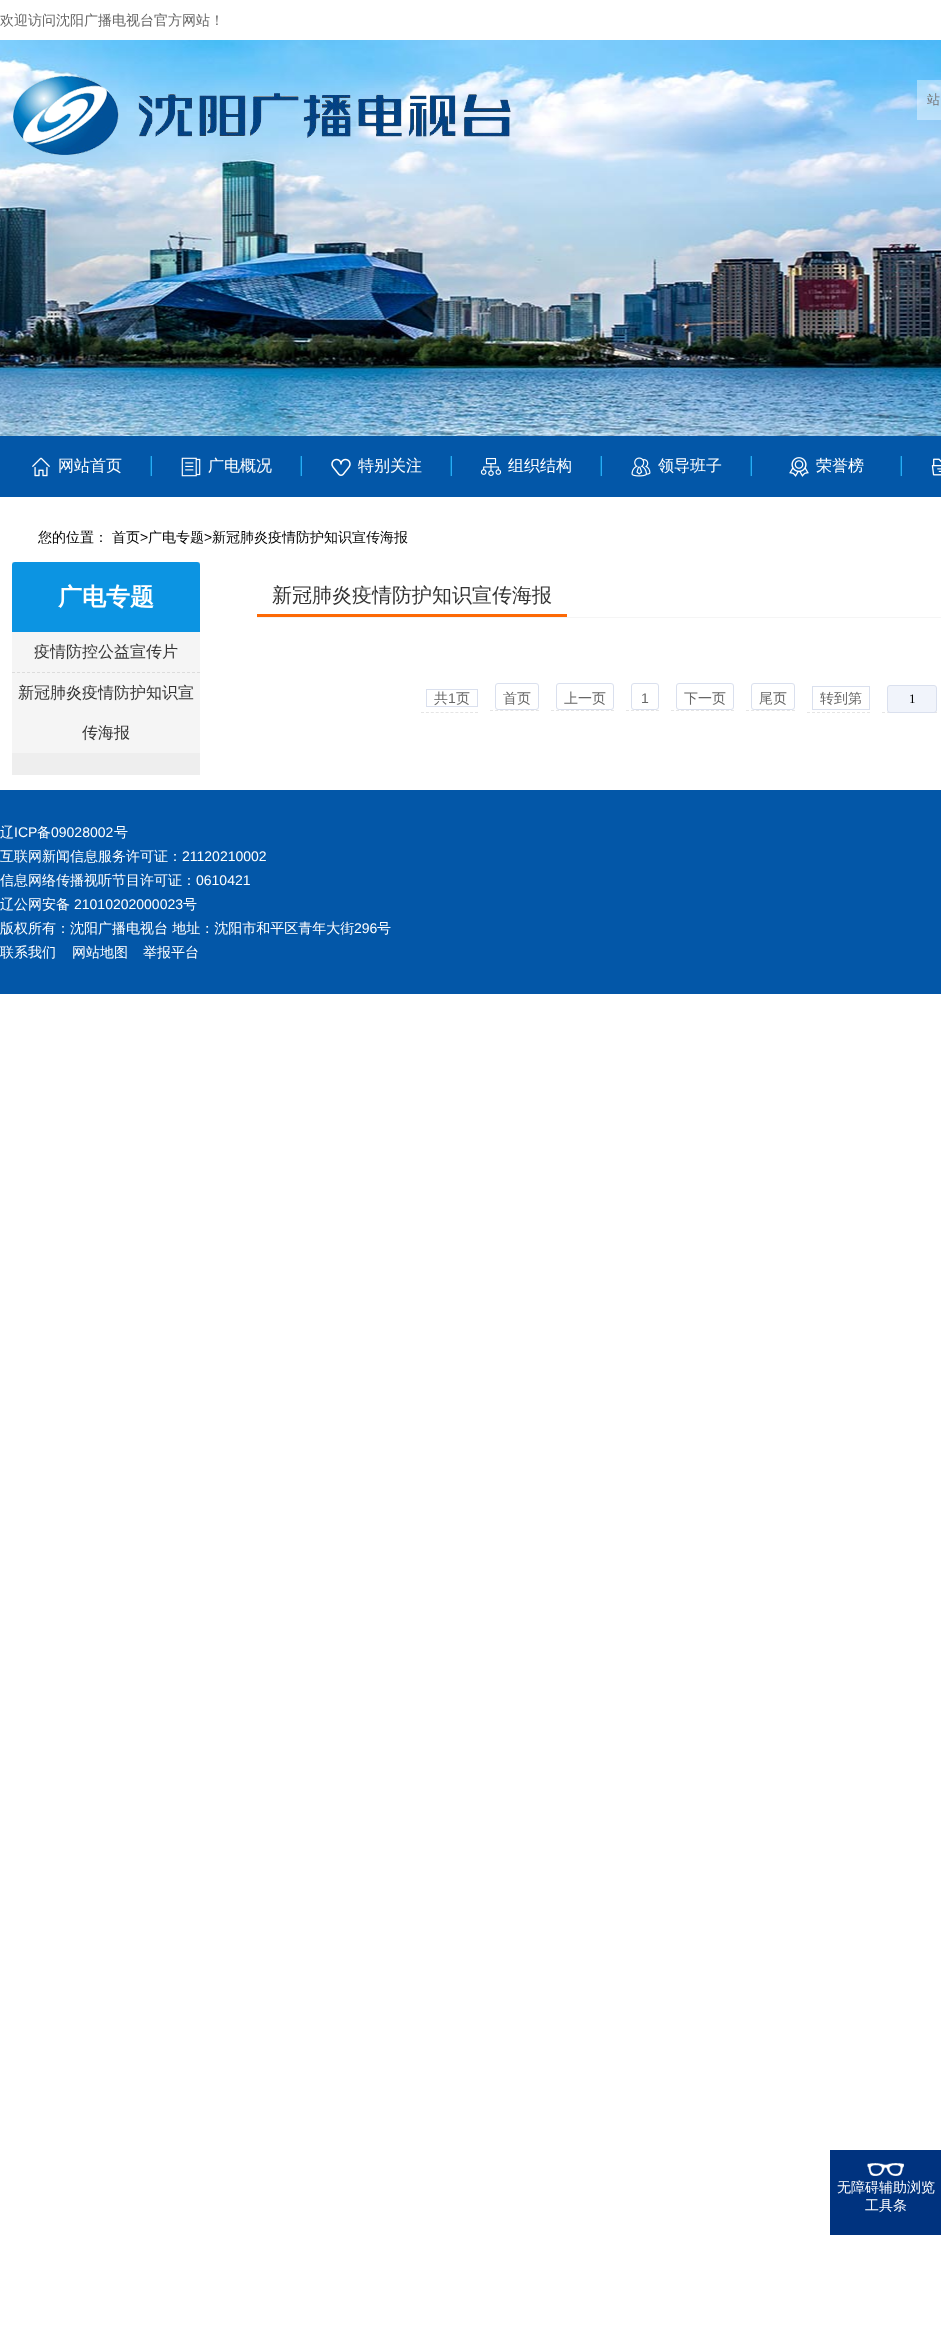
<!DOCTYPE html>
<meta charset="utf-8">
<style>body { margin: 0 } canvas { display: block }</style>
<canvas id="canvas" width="941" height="2335"></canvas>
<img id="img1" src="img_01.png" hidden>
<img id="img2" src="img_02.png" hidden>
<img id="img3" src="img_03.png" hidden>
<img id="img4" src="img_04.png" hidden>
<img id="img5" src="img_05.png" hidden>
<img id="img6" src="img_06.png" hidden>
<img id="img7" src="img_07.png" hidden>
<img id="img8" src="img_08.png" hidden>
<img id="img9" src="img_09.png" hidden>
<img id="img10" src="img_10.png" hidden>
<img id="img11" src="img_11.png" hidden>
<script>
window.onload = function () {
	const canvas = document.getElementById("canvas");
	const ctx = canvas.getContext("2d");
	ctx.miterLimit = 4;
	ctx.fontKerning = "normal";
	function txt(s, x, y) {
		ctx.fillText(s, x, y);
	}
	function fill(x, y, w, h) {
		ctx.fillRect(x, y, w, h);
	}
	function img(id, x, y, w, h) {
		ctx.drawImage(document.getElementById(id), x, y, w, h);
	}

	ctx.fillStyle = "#FFFFFF";
	fill(0, 0, 941, 2335);
	img("img1", 0, 40, 941, 396);
	img("img2", 13, 75, 498, 80);
	ctx.fillStyle = "rgba(255, 255, 255, 0.4)";
	fill(917, 80, 24, 40);
	ctx.fillStyle = "#0357A8";
	fill(0, 436, 941, 61);
	img("img3", 32, 457, 18, 20);
	img("img4", 150, 456, 2, 20);
	img("img5", 181, 457, 20, 20);
	img("img4", 300, 456, 2, 20);
	img("img6", 331, 458, 20, 18);
	img("img4", 450, 456, 2, 20);
	img("img7", 480, 458, 22, 18);
	img("img4", 600, 456, 2, 20);
	img("img8", 631, 457, 20, 20);
	img("img4", 750, 456, 2, 20);
	img("img9", 789, 457, 20, 20);
	img("img4", 900, 456, 2, 20);
	img("img10", 931, 458, 10, 18);
	ctx.fillStyle = "#EEEEEE";
	fill(12, 562, 188, 213);
	ctx.fillStyle = "#F5F5F5";
	ctx.beginPath();
	ctx.roundRect(12, 562, 188, 191, [3, 3, 0, 0]);
	ctx.fill();
	ctx.fillStyle = "#0C94E2";
	ctx.beginPath();
	ctx.roundRect(12, 562, 188, 70, [3, 3, 0, 0]);
	ctx.fill();
	ctx.beginPath();
	ctx.moveTo(12, 672.5);
	ctx.lineTo(200, 672.5);
	ctx.strokeStyle = "#DCDCDC";
	ctx.setLineDash([3, 2]);
	ctx.stroke();
	ctx.fillStyle = "#F5F5F5";
	fill(257, 617, 684, 1);
	ctx.fillStyle = "#FD6905";
	fill(257, 614, 310, 3);
	ctx.beginPath();
	ctx.moveTo(421, 712.5);
	ctx.lineTo(478, 712.5);
	ctx.strokeStyle = "#E5E5E5";
	ctx.setLineDash([3, 1.91]);
	ctx.stroke();
	ctx.strokeStyle = "#DAE0EE";
	ctx.setLineDash([]);
	ctx.strokeRect(426.5, 689.5, 51, 17);
	ctx.beginPath();
	ctx.moveTo(490, 710.5);
	ctx.lineTo(539, 710.5);
	ctx.strokeStyle = "#E5E5E5";
	ctx.setLineDash([3, 2.11]);
	ctx.stroke();
	ctx.beginPath();
	ctx.roundRect(495.5, 683.5, 43, 26, 2.5);
	ctx.strokeStyle = "#DAE0EE";
	ctx.setLineDash([]);
	ctx.stroke();
	ctx.beginPath();
	ctx.moveTo(551, 710.5);
	ctx.lineTo(614, 710.5);
	ctx.strokeStyle = "#E5E5E5";
	ctx.setLineDash([3, 2]);
	ctx.stroke();
	ctx.beginPath();
	ctx.roundRect(556.5, 683.5, 57, 26, 2.5);
	ctx.strokeStyle = "#DAE0EE";
	ctx.setLineDash([]);
	ctx.stroke();
	ctx.beginPath();
	ctx.moveTo(626, 710.5);
	ctx.lineTo(659, 710.5);
	ctx.strokeStyle = "#E5E5E5";
	ctx.setLineDash([3, 2]);
	ctx.stroke();
	ctx.beginPath();
	ctx.roundRect(631.5, 683.5, 27, 26, 2.5);
	ctx.strokeStyle = "#DAE0EE";
	ctx.setLineDash([]);
	ctx.stroke();
	ctx.beginPath();
	ctx.moveTo(671, 710.5);
	ctx.lineTo(734, 710.5);
	ctx.strokeStyle = "#E5E5E5";
	ctx.setLineDash([3, 2]);
	ctx.stroke();
	ctx.beginPath();
	ctx.roundRect(676.5, 683.5, 57, 26, 2.5);
	ctx.strokeStyle = "#DAE0EE";
	ctx.setLineDash([]);
	ctx.stroke();
	ctx.beginPath();
	ctx.moveTo(746, 710.5);
	ctx.lineTo(795, 710.5);
	ctx.strokeStyle = "#E5E5E5";
	ctx.setLineDash([3, 2.11]);
	ctx.stroke();
	ctx.beginPath();
	ctx.roundRect(751.5, 683.5, 43, 26, 2.5);
	ctx.strokeStyle = "#DAE0EE";
	ctx.setLineDash([]);
	ctx.stroke();
	ctx.beginPath();
	ctx.moveTo(807, 712.5);
	ctx.lineTo(870, 712.5);
	ctx.strokeStyle = "#E5E5E5";
	ctx.setLineDash([3, 2]);
	ctx.stroke();
	ctx.strokeStyle = "#DAE0EE";
	ctx.setLineDash([]);
	ctx.strokeRect(812.5, 686.5, 57, 23);
	ctx.beginPath();
	ctx.moveTo(882, 712.5);
	ctx.lineTo(937, 712.5);
	ctx.strokeStyle = "#E5E5E5";
	ctx.setLineDash([3, 2.2]);
	ctx.stroke();
	ctx.fillStyle = "#F1F4FB";
	ctx.beginPath();
	ctx.roundRect(887.5, 685.5, 49, 27, 2.5);
	ctx.fill();
	ctx.strokeStyle = "#DAE0EE";
	ctx.setLineDash([]);
	ctx.stroke();
	ctx.fillStyle = "#0357A8";
	fill(0, 790, 941, 204);
	ctx.fillStyle = "#00337F";
	fill(830, 2150, 111, 85);
	img("img11", 867, 2163, 37, 13);
	ctx.font = "500 14px WenQuanYi Zen Hei";
	ctx.fillStyle = "#666666";
	txt("欢迎访问沈阳广播电视台官方网站！", 0, 25);
	ctx.font = "500 13px WenQuanYi Zen Hei";
	ctx.fillStyle = "#757575";
	txt("站", 927, 104);
	ctx.font = "500 16px WenQuanYi Zen Hei";
	ctx.fillStyle = "#FFFFFF";
	txt("网站首页", 58, 471);
	txt("广电概况", 208, 471);
	txt("特别关注", 358, 471);
	txt("组织结构", 508, 471);
	txt("领导班子", 658, 471);
	txt("荣誉榜", 816, 471);
	ctx.font = "500 14px WenQuanYi Zen Hei";
	ctx.fillStyle = "#000000";
	txt("您的位置：", 38, 542);
	txt("首页", 112, 542);
	ctx.font = "14px Liberation Sans";
	txt(">", 140, 542);
	ctx.font = "500 14px WenQuanYi Zen Hei";
	txt("广电专题", 148, 542);
	ctx.font = "14px Liberation Sans";
	txt(">", 204, 542);
	ctx.font = "500 14px WenQuanYi Zen Hei";
	txt("新冠肺炎疫情防护知识宣传海报", 212, 542);
	ctx.font = "bold 24px WenQuanYi Zen Hei";
	ctx.fillStyle = "#FFFFFF";
	txt("广电专题", 58, 605);
	ctx.font = "500 16px WenQuanYi Zen Hei";
	ctx.fillStyle = "#333333";
	txt("疫情防控公益宣传片", 34, 657);
	txt("新冠肺炎疫情防护知识宣", 18, 698);
	txt("传海报", 82, 738);
	ctx.font = "500 20px WenQuanYi Zen Hei";
	txt("新冠肺炎疫情防护知识宣传海报", 272, 602);
	ctx.font = "500 14px WenQuanYi Zen Hei";
	ctx.fillStyle = "#666666";
	txt("共", 434, 703);
	ctx.font = "14px Liberation Sans";
	txt("1", 448, 703);
	ctx.font = "500 14px WenQuanYi Zen Hei";
	txt("页", 456, 703);
	txt("首页", 503, 703);
	txt("上一页", 564, 703);
	ctx.font = "14px Liberation Sans";
	txt("1", 641, 703);
	ctx.font = "500 14px WenQuanYi Zen Hei";
	txt("下一页", 684, 703);
	txt("尾页", 759, 703);
	txt("转到第", 820, 703);
	ctx.font = "13px Liberation Serif";
	ctx.fillStyle = "#000000";
	txt("1", 909, 703);
	ctx.font = "500 14px WenQuanYi Zen Hei";
	ctx.fillStyle = "#FFFFFF";
	txt("辽", 0, 837);
	ctx.font = "14px Liberation Sans";
	txt("ICP", 14, 837);
	ctx.font = "500 14px WenQuanYi Zen Hei";
	txt("备", 37, 837);
	ctx.font = "14px Liberation Sans";
	txt("09028002", 51, 837);
	ctx.font = "500 14px WenQuanYi Zen Hei";
	txt("号", 114, 837);
	txt("互联网新闻信息服务许可证：", 0, 861);
	ctx.font = "14px Liberation Sans";
	txt("21120210002", 182, 861);
	ctx.font = "500 14px WenQuanYi Zen Hei";
	txt("信息网络传播视听节目许可证：", 0, 885);
	ctx.font = "14px Liberation Sans";
	txt("0610421", 196, 885);
	ctx.font = "500 14px WenQuanYi Zen Hei";
	txt("辽公网安备", 0, 909);
	ctx.font = "14px Liberation Sans";
	txt("21010202000023", 74, 909);
	ctx.font = "500 14px WenQuanYi Zen Hei";
	txt("号", 183, 909);
	txt("版权所有：沈阳广播电视台 地址：沈阳市和平区青年大街", 0, 933);
	ctx.font = "14px Liberation Sans";
	txt("296", 354, 933);
	ctx.font = "500 14px WenQuanYi Zen Hei";
	txt("号", 377, 933);
	txt("联系我们", 0, 957);
	txt("网站地图", 72, 957);
	txt("举报平台", 143, 957);
	txt("无障碍辅助浏览", 837, 2192);
	txt("工具条", 865, 2210);
};
</script>
